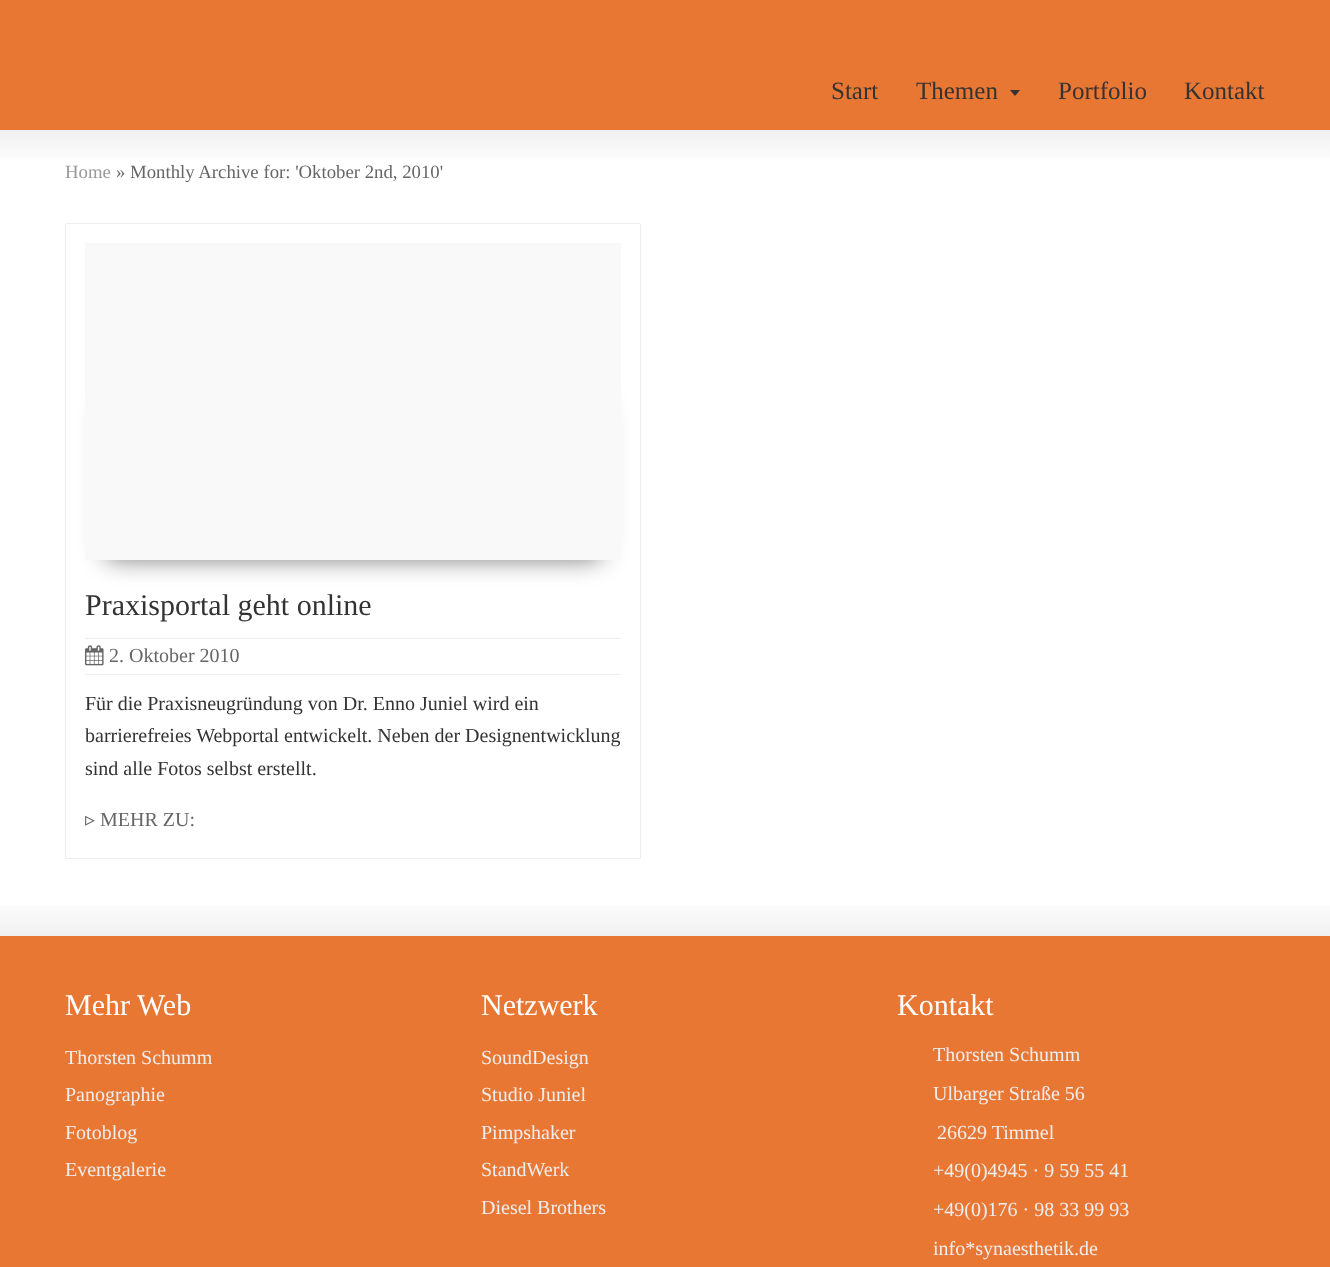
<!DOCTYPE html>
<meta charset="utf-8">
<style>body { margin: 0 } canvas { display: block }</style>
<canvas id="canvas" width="1330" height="1267"></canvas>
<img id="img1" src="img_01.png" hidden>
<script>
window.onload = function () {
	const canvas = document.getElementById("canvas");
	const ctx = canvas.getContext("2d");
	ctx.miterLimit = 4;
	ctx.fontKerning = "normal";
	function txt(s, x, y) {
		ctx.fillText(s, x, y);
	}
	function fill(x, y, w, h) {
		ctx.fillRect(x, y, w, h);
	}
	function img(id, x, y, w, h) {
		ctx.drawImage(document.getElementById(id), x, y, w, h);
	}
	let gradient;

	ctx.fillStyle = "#FFFFFF";
	fill(0, 0, 1330, 1267);
	ctx.fillStyle = "#E97734";
	fill(0, 0, 1330, 130);
	ctx.fillStyle = "#333333";
	ctx.beginPath();
	ctx.moveTo(1010, 90);
	ctx.lineTo(1020, 90);
	ctx.lineTo(1015, 96);
	ctx.closePath();
	ctx.fill();
	gradient = ctx.createLinearGradient(665, 130, 665, 164);
	gradient.addColorStop(0, "#F0F0F0");
	gradient.addColorStop(1, "#FFFFFF");
	ctx.fillStyle = gradient;
	fill(0, 130, 1330, 28);
	ctx.beginPath();
	ctx.roundRect(65.5, 223.5, 575, 635, 0.5);
	ctx.strokeStyle = "#EEEEEE";
	ctx.stroke();
	ctx.fillStyle = "rgba(0, 0, 0, 0.5)";
	ctx.filter = "blur(12.5px)";
	ctx.beginPath();
	ctx.roundRect(104, 401, 499, 159, 13);
	ctx.fill();
	ctx.filter = "none";
	ctx.fillStyle = "#F9F9F9";
	fill(85, 243, 536, 317);
	ctx.fillStyle = "#EEEEEE";
	fill(85, 638, 536, 1);
	fill(85, 674, 536, 1);
	img("img1", 85, 645, 19, 21);
	gradient = ctx.createLinearGradient(665, 899, 665, 936);
	gradient.addColorStop(0, "#FFFFFF");
	gradient.addColorStop(1, "#F0F0F0");
	ctx.fillStyle = gradient;
	fill(0, 905, 1330, 31);
	ctx.fillStyle = "#E97734";
	fill(0, 936, 1330, 331);
	ctx.font = "25px Liberation Serif";
	ctx.fillStyle = "#333333";
	txt("Start", 831, 99);
	txt("Themen", 916, 99);
	txt("Portfolio", 1058, 99);
	txt("Kontakt", 1184, 99);
	ctx.font = "18.75px Liberation Serif";
	ctx.fillStyle = "#999999";
	txt("Home", 65, 178);
	ctx.fillStyle = "#666666";
	txt("» Monthly Archive for: 'Oktober 2nd, 2010'", 116, 178);
	ctx.font = "30px Liberation Serif";
	ctx.fillStyle = "#333333";
	txt("Praxisportal geht online", 85, 615);
	ctx.font = "20px Liberation Serif";
	ctx.fillStyle = "#666666";
	txt("2. Oktober 2010", 109, 662);
	ctx.fillStyle = "#333333";
	txt("Für die Praxisneugründung von Dr. Enno Juniel wird ein", 85, 710);
	txt("barrierefreies Webportal entwickelt. Neben der Designentwicklung", 85, 742);
	txt("sind alle Fotos selbst erstellt.", 85, 775);
	ctx.font = "20px DejaVu Sans";
	ctx.fillStyle = "#666666";
	txt("▹", 85, 826);
	ctx.font = "20px Liberation Serif";
	txt("MEHR ZU:", 100, 826);
	ctx.font = "30px Liberation Serif";
	ctx.fillStyle = "#FFFFFF";
	txt("Mehr Web", 65, 1015);
	ctx.font = "20px Liberation Serif";
	ctx.fillStyle = "#EEEEEE";
	txt("Thorsten Schumm", 65, 1064);
	txt("Panographie", 65, 1101);
	txt("Fotoblog", 65, 1139);
	txt("Eventgalerie", 65, 1176);
	ctx.font = "30px Liberation Serif";
	ctx.fillStyle = "#FFFFFF";
	txt("Netzwerk", 481, 1015);
	ctx.font = "20px Liberation Serif";
	ctx.fillStyle = "#EEEEEE";
	txt("SoundDesign", 481, 1064);
	txt("Studio Juniel", 481, 1101);
	txt("Pimpshaker", 481, 1139);
	txt("StandWerk", 481, 1176);
	txt("Diesel Brothers", 481, 1214);
	ctx.font = "30px Liberation Serif";
	ctx.fillStyle = "#FFFFFF";
	txt("Kontakt", 897, 1015);
	ctx.font = "20px Liberation Serif";
	ctx.fillStyle = "#EEEEEE";
	txt("Thorsten Schumm", 933, 1061);
	txt("Ulbarger Straße 56", 933, 1100);
	txt("26629 Timmel", 937, 1139);
	txt("+49(0)4945 · 9 59 55 41", 933, 1177);
	txt("+49(0)176 · 98 33 99 93", 933, 1216);
	txt("info*synaesthetik.de", 933, 1255);
};
</script>
